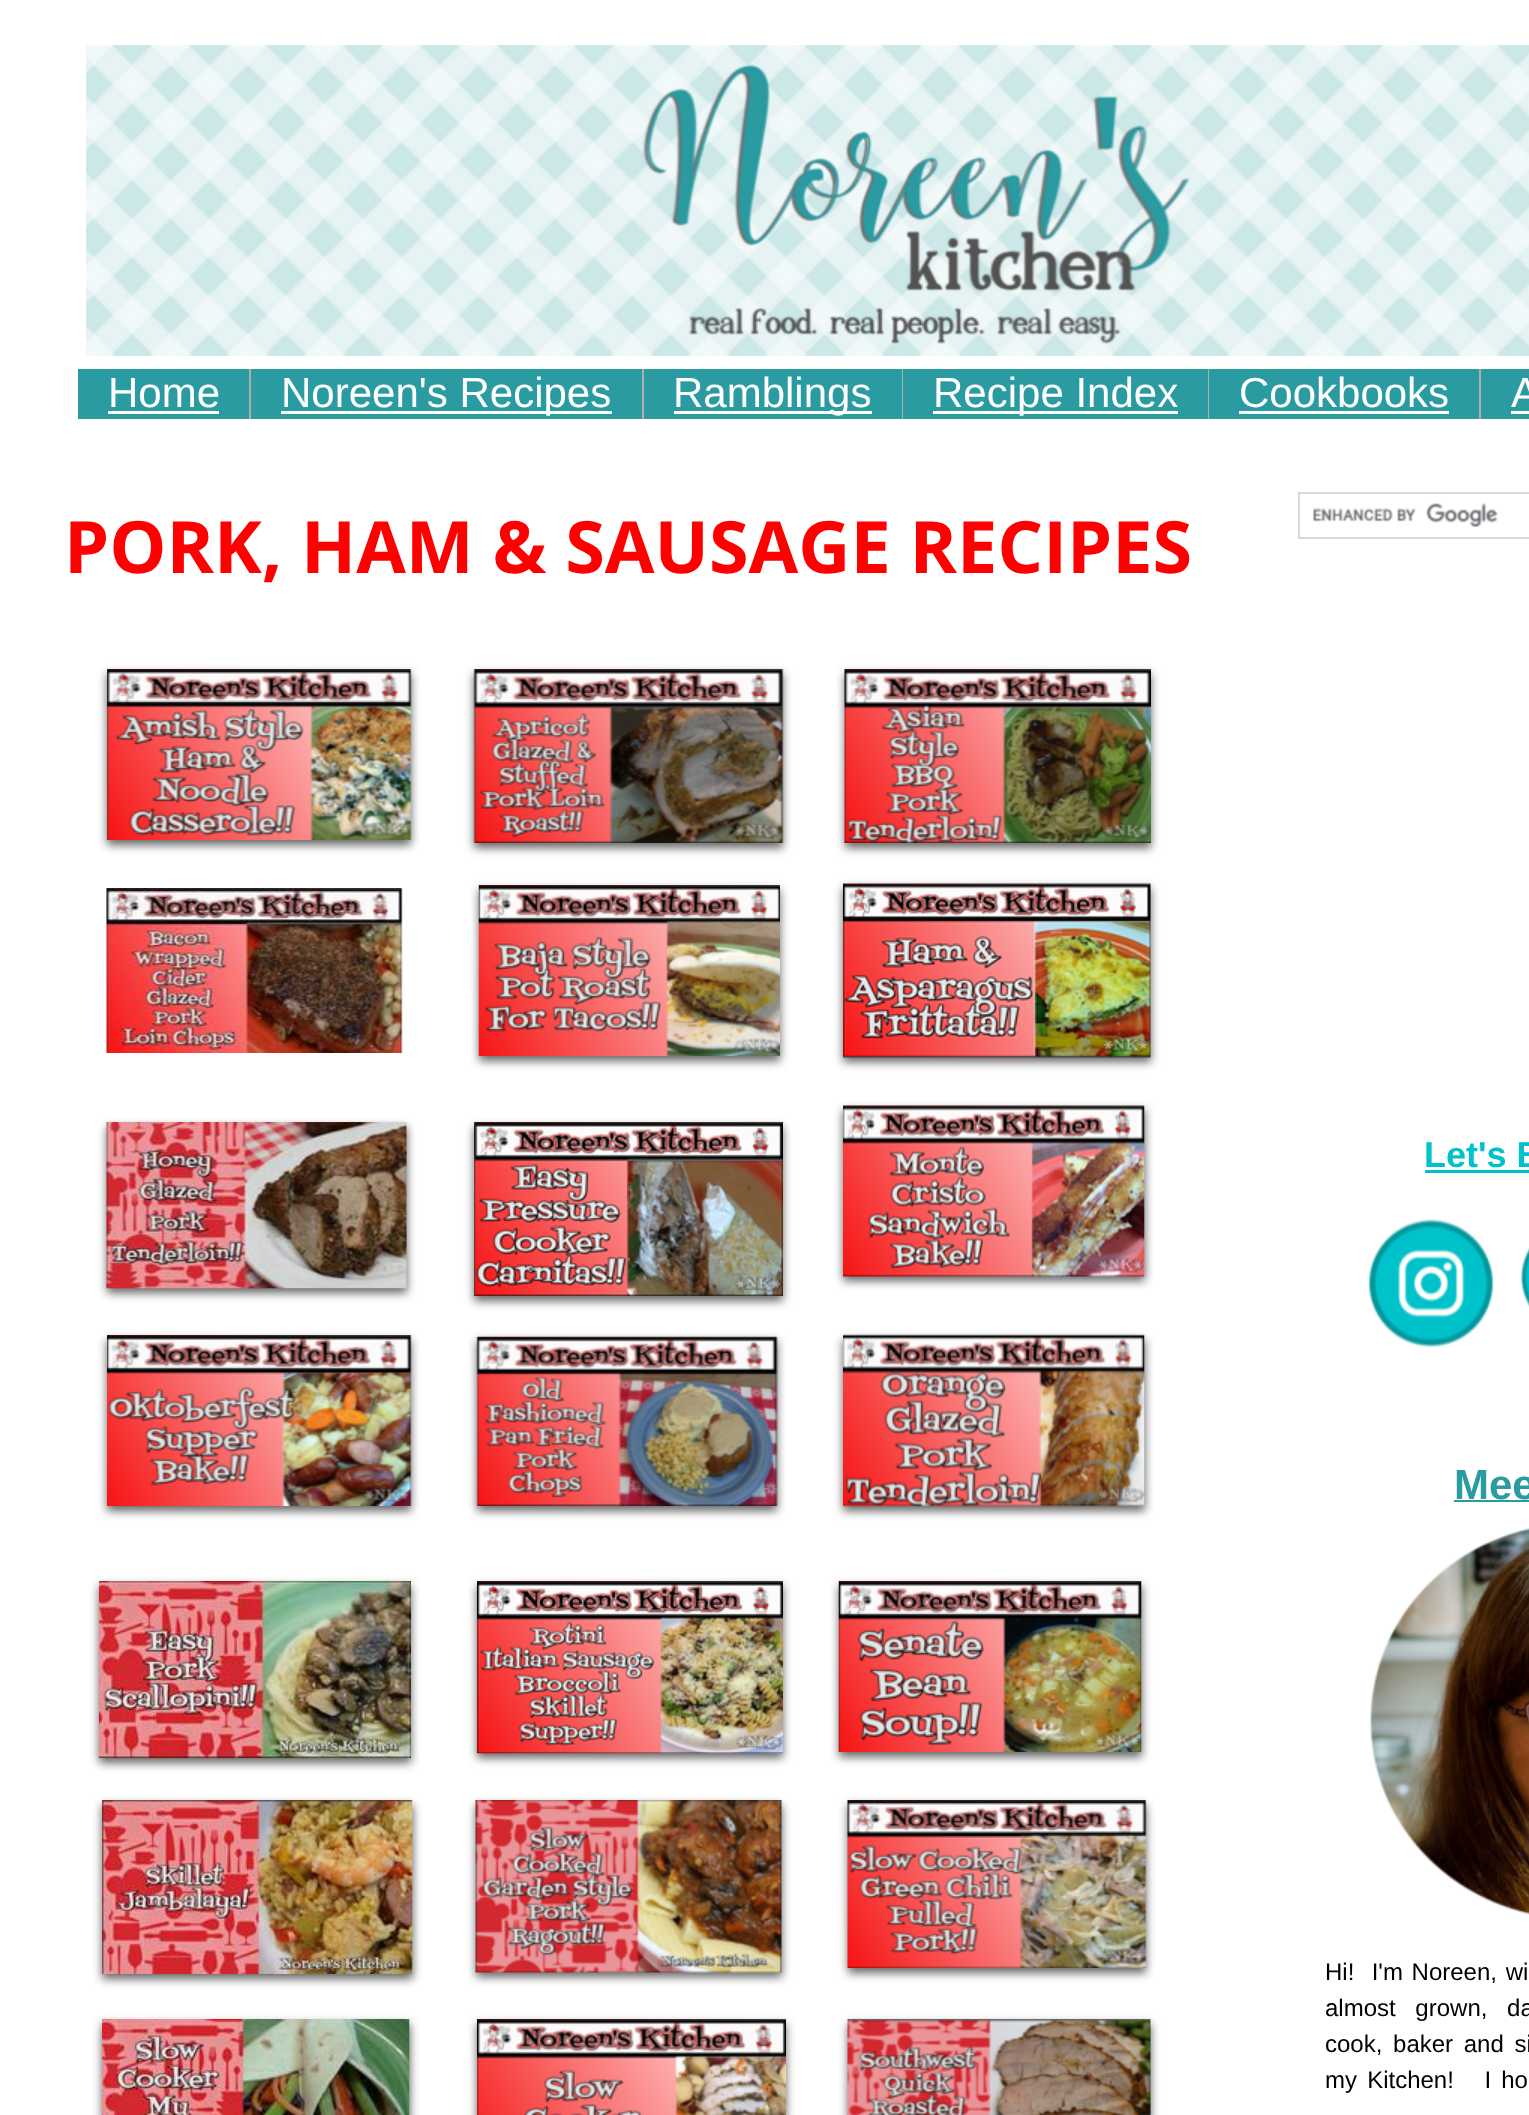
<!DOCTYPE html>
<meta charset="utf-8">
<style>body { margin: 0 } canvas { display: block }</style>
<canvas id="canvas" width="1529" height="2115"></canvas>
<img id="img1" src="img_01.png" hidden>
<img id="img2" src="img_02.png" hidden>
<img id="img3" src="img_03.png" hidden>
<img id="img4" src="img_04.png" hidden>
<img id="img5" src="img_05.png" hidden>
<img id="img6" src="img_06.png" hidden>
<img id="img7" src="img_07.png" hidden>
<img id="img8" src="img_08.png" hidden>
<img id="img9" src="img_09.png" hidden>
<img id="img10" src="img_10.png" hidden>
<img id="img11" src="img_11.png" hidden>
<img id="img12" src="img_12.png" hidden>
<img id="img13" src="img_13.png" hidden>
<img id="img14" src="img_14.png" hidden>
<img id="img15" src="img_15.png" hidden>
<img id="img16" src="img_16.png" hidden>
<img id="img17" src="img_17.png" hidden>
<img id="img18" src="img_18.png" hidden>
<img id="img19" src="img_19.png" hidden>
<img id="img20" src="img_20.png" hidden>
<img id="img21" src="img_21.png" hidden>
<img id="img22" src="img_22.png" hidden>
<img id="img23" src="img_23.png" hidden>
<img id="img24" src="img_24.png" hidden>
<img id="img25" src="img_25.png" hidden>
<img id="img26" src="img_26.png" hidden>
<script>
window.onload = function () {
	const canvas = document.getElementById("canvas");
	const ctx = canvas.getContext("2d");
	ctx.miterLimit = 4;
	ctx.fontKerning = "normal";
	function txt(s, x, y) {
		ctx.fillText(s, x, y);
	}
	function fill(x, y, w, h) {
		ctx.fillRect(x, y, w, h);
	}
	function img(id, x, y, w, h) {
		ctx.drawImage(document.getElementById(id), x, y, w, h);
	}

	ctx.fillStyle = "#FFFFFF";
	fill(0, 0, 1529, 2115);
	img("img1", 86, 45, 1443, 311);
	ctx.fillStyle = "#2B9BA2";
	fill(78, 369, 171, 50);
	ctx.fillStyle = "#AEAEAE";
	fill(249, 369, 2, 50);
	ctx.fillStyle = "#FFFFFF";
	fill(108, 411, 111, 3);
	ctx.fillStyle = "#2B9BA2";
	fill(251, 369, 391, 50);
	ctx.fillStyle = "#AEAEAE";
	fill(642, 369, 2, 50);
	ctx.fillStyle = "#FFFFFF";
	fill(281, 411, 331, 3);
	ctx.fillStyle = "#2B9BA2";
	fill(644, 369, 258, 50);
	ctx.fillStyle = "#AEAEAE";
	fill(902, 369, 1, 50);
	ctx.fillStyle = "#FFFFFF";
	fill(674, 411, 198, 3);
	ctx.fillStyle = "#2B9BA2";
	fill(903, 369, 305, 50);
	ctx.fillStyle = "#AEAEAE";
	fill(1208, 369, 1, 50);
	ctx.fillStyle = "#FFFFFF";
	fill(933, 411, 245, 3);
	ctx.fillStyle = "#2B9BA2";
	fill(1209, 369, 270, 50);
	ctx.fillStyle = "#AEAEAE";
	fill(1479, 369, 2, 50);
	ctx.fillStyle = "#FFFFFF";
	fill(1239, 411, 210, 3);
	ctx.fillStyle = "#2B9BA2";
	fill(1481, 369, 48, 50);
	ctx.fillStyle = "#FFFFFF";
	fill(1511, 411, 18, 3);
	ctx.strokeStyle = "#D9D9D9";
	ctx.lineWidth = 2;
	ctx.strokeRect(1299, 493, 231, 45);
	img("img2", 1313, 503, 185, 24);
	ctx.fillStyle = "rgba(50, 50, 50, 0.75)";
	ctx.filter = "blur(5px)";
	ctx.beginPath();
	ctx.rect(107, 674, 304, 171);
	ctx.fill();
	ctx.filter = "none";
	img("img3", 107, 669, 305, 171);
	ctx.filter = "blur(5px)";
	ctx.beginPath();
	ctx.rect(474, 674, 309, 174);
	ctx.fill();
	ctx.filter = "none";
	img("img4", 473, 669, 311, 174);
	ctx.filter = "blur(5px)";
	ctx.beginPath();
	ctx.rect(845, 674, 306, 174);
	ctx.fill();
	ctx.filter = "none";
	img("img5", 844, 669, 307, 174);
	img("img6", 106, 888, 297, 165);
	ctx.filter = "blur(5px)";
	ctx.beginPath();
	ctx.rect(479, 890, 301, 171);
	ctx.fill();
	ctx.filter = "none";
	img("img7", 478, 885, 302, 171);
	ctx.filter = "blur(5px)";
	ctx.beginPath();
	ctx.rect(843, 888, 308, 174);
	ctx.fill();
	ctx.filter = "none";
	img("img8", 843, 883, 308, 175);
	ctx.filter = "blur(5px)";
	ctx.beginPath();
	ctx.rect(107, 1127, 300, 166);
	ctx.fill();
	ctx.filter = "none";
	img("img9", 106, 1122, 301, 167);
	ctx.filter = "blur(5px)";
	ctx.beginPath();
	ctx.rect(474, 1127, 309, 174);
	ctx.fill();
	ctx.filter = "none";
	img("img10", 474, 1122, 309, 174);
	ctx.filter = "blur(5px)";
	ctx.beginPath();
	ctx.rect(843, 1110, 302, 171);
	ctx.fill();
	ctx.filter = "none";
	img("img11", 843, 1105, 302, 172);
	ctx.fillStyle = "#00C2CB";
	fill(1425, 1170, 104, 3);
	img("img12", 1368, 1219, 127, 129);
	img("img13", 1520, 1247, 9, 60);
	ctx.fillStyle = "rgba(50, 50, 50, 0.75)";
	ctx.filter = "blur(5px)";
	ctx.beginPath();
	ctx.rect(107, 1340, 304, 171);
	ctx.fill();
	ctx.filter = "none";
	img("img14", 107, 1335, 305, 171);
	ctx.filter = "blur(5px)";
	ctx.beginPath();
	ctx.rect(477, 1341, 300, 170);
	ctx.fill();
	ctx.filter = "none";
	img("img15", 476, 1336, 302, 170);
	ctx.filter = "blur(5px)";
	ctx.beginPath();
	ctx.rect(843, 1340, 302, 171);
	ctx.fill();
	ctx.filter = "none";
	img("img16", 843, 1334, 302, 173);
	ctx.fillStyle = "#2B9BA2";
	fill(1454, 1500, 75, 2);
	ctx.fillStyle = "rgba(50, 50, 50, 0.75)";
	ctx.filter = "blur(5px)";
	ctx.beginPath();
	ctx.rect(99, 1586, 312, 177);
	ctx.fill();
	ctx.filter = "none";
	img("img17", 99, 1581, 312, 177);
	ctx.filter = "blur(5px)";
	ctx.beginPath();
	ctx.rect(477, 1586, 306, 172);
	ctx.fill();
	ctx.filter = "none";
	img("img18", 477, 1581, 306, 173);
	ctx.filter = "blur(5px)";
	ctx.beginPath();
	ctx.rect(839, 1586, 303, 171);
	ctx.fill();
	ctx.filter = "none";
	img("img19", 838, 1581, 304, 171);
	img("img20", 1369, 1528, 160, 387);
	ctx.filter = "blur(5px)";
	ctx.beginPath();
	ctx.rect(102, 1805, 311, 174);
	ctx.fill();
	ctx.filter = "none";
	img("img21", 102, 1800, 311, 174);
	ctx.filter = "blur(5px)";
	ctx.beginPath();
	ctx.rect(476, 1805, 306, 172);
	ctx.fill();
	ctx.filter = "none";
	img("img22", 475, 1800, 307, 173);
	ctx.filter = "blur(5px)";
	ctx.beginPath();
	ctx.rect(848, 1805, 298, 168);
	ctx.fill();
	ctx.filter = "none";
	img("img23", 847, 1800, 300, 168);
	ctx.filter = "blur(5px)";
	ctx.beginPath();
	ctx.rect(102, 2024, 308, 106);
	ctx.fill();
	ctx.filter = "none";
	img("img24", 102, 2019, 308, 96);
	ctx.filter = "blur(5px)";
	ctx.beginPath();
	ctx.rect(477, 2024, 309, 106);
	ctx.fill();
	ctx.filter = "none";
	img("img25", 477, 2019, 309, 96);
	ctx.filter = "blur(5px)";
	ctx.beginPath();
	ctx.rect(848, 2024, 303, 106);
	ctx.fill();
	ctx.filter = "none";
	img("img26", 847, 2019, 304, 96);
	ctx.font = "42px Liberation Sans";
	ctx.fillStyle = "#FFFFFF";
	txt("Home", 108, 407);
	txt("Noreen's Recipes", 281, 407);
	txt("Ramblings", 673, 407);
	txt("Recipe Index", 933, 407);
	txt("Cookbooks", 1239, 407);
	txt("A", 1511, 407);
	ctx.font = "bold 72px Open Sans";
	ctx.fillStyle = "#FF0000";
	txt("PORK, HAM & SAUSAGE RECIPES", 64, 573);
	ctx.font = "bold 36px Liberation Sans";
	ctx.fillStyle = "#00C2CB";
	txt("Let's B", 1424, 1167);
	ctx.font = "bold 42px Liberation Sans";
	ctx.fillStyle = "#2B9BA2";
	txt("Mee", 1454, 1499);
	ctx.wordSpacing = "2px";
	ctx.font = "24px Liberation Sans";
	ctx.fillStyle = "#000000";
	txt("Hi!  I'm Noreen, wi", 1325, 1980);
	ctx.wordSpacing = "13px";
	txt("almost grown, da", 1325, 2016);
	ctx.wordSpacing = "4px";
	txt("cook, baker and si", 1325, 2052);
	ctx.wordSpacing = "3.5px";
	txt("my Kitchen!   I ho", 1325, 2088);
};
</script>
